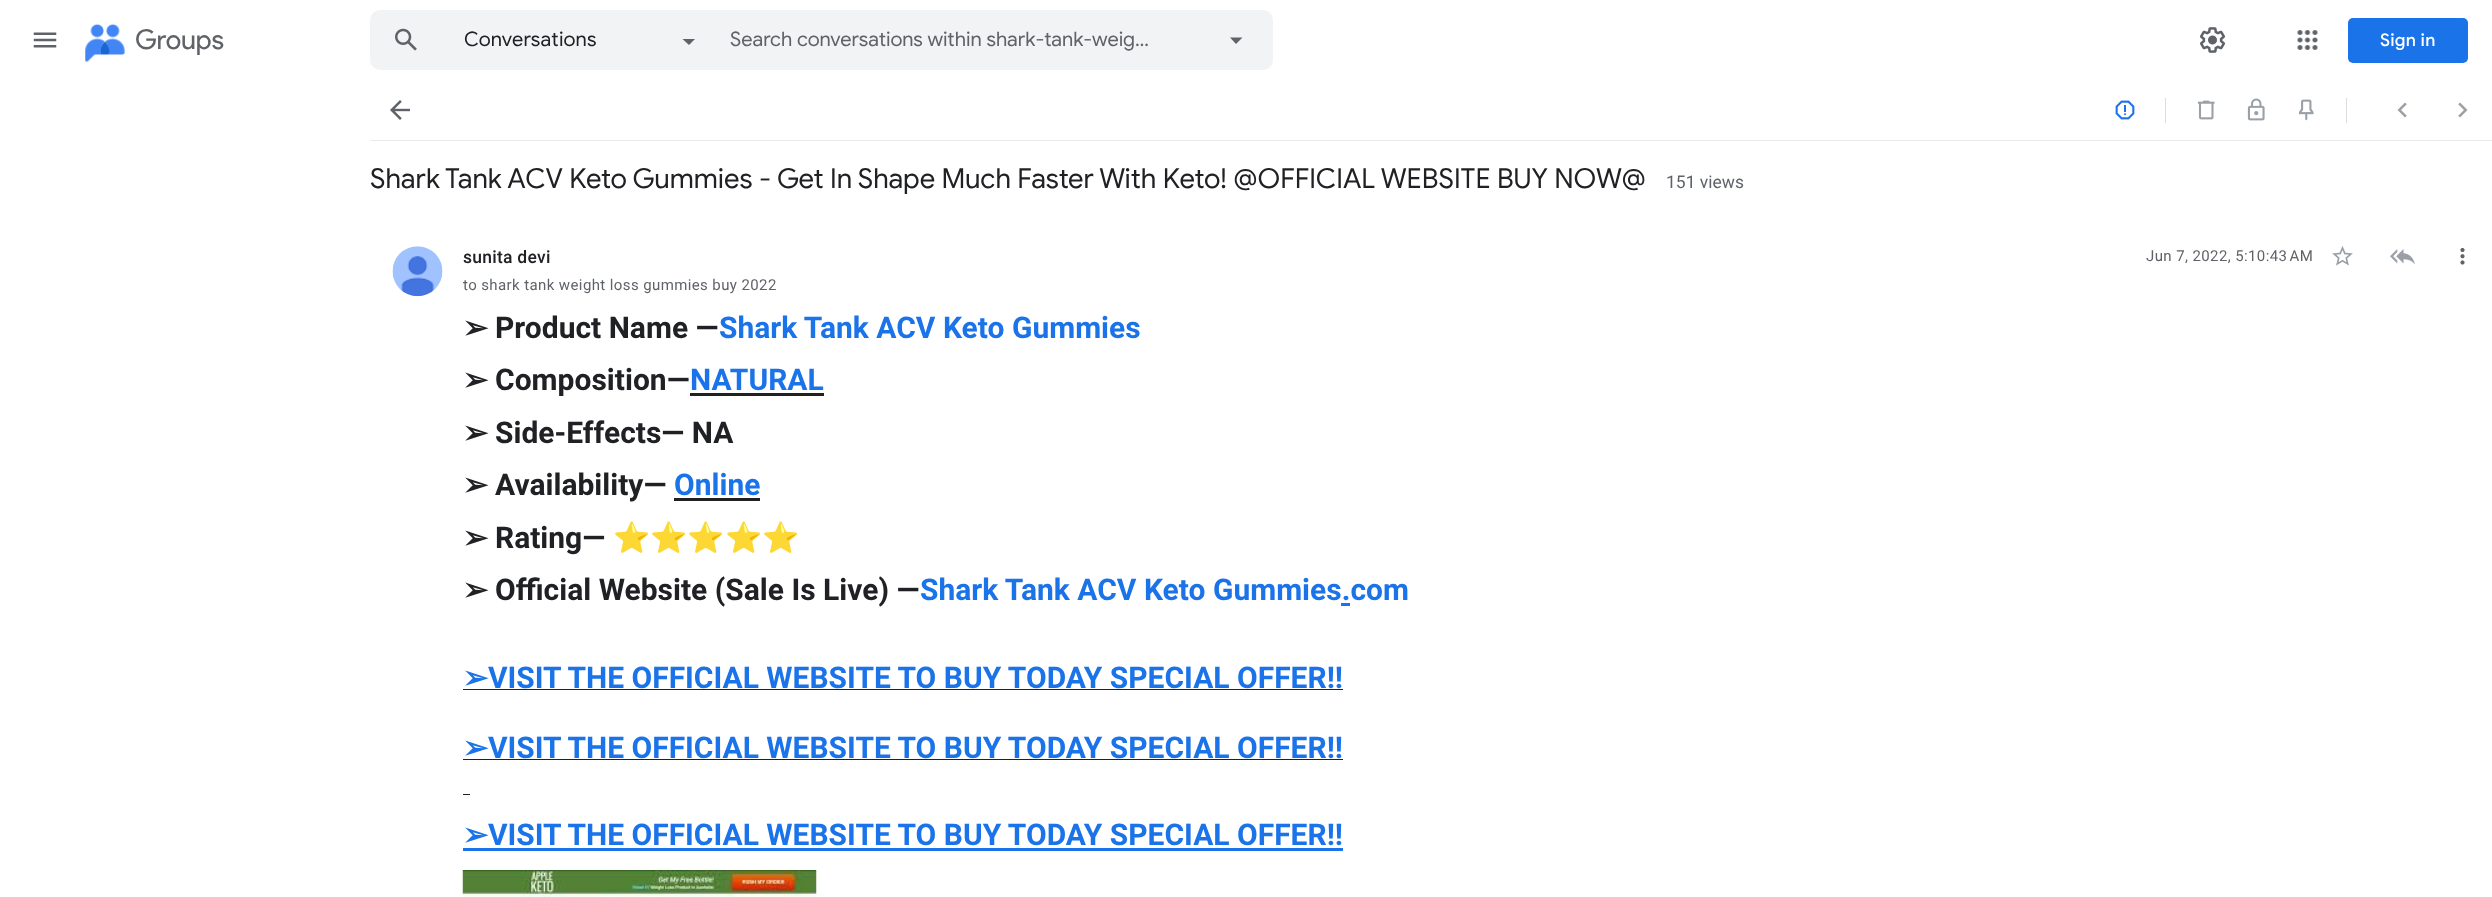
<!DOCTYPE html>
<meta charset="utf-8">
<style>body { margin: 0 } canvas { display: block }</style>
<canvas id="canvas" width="2492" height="897"></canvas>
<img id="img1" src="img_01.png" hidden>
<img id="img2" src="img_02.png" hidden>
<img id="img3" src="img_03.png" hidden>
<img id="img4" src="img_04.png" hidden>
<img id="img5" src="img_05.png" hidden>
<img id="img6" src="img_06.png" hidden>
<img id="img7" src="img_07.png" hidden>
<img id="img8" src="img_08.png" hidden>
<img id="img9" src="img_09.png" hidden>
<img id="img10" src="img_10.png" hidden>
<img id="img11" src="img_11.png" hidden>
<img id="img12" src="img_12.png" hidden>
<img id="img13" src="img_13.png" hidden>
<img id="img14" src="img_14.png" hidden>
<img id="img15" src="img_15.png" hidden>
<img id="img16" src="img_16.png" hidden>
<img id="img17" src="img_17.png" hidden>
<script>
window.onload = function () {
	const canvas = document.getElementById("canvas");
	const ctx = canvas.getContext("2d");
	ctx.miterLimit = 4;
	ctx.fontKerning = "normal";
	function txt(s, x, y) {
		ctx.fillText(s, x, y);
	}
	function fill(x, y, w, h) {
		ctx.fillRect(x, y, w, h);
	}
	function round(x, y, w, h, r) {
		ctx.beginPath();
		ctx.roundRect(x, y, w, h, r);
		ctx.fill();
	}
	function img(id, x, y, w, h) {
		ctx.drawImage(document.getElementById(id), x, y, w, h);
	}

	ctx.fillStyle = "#FFFFFF";
	fill(0, 0, 2492, 897);
	img("img1", 33, 32, 24, 16);
	img("img2", 85, 23, 40, 40);
	ctx.fillStyle = "#F1F3F4";
	round(370, 10, 903, 60, 10);
	img("img3", 395, 28, 22, 23);
	ctx.fillStyle = "#5F6368";
	ctx.beginPath();
	ctx.moveTo(682.5, 39);
	ctx.lineTo(695, 39);
	ctx.lineTo(689, 45);
	ctx.closePath();
	ctx.fill();
	ctx.beginPath();
	ctx.moveTo(1230, 37.5);
	ctx.lineTo(1236, 44);
	ctx.lineTo(1242.5, 37.5);
	ctx.closePath();
	ctx.fill();
	img("img4", 2200, 27, 25, 26);
	img("img5", 2297, 30, 21, 20);
	ctx.fillStyle = "#1A73E8";
	round(2348, 18, 120, 45, 5);
	ctx.fillStyle = "#E8EAED";
	fill(370, 140, 2122, 1);
	img("img6", 390, 100, 20, 20);
	img("img7", 2115, 100, 20, 20);
	ctx.fillStyle = "#DDDDDD";
	fill(2165, 98, 1, 25);
	img("img8", 2197, 100, 18, 20);
	img("img9", 2247, 98, 18, 23);
	img("img10", 2298, 99, 16, 22);
	fill(2346, 98, 1, 25);
	img("img11", 2397, 102, 10, 16);
	img("img12", 2458, 102, 10, 16);
	img("img13", 392, 246, 51, 51);
	img("img14", 2332, 246, 21, 20);
	img("img15", 2390, 249, 25, 16);
	img("img16", 2460, 247, 5, 18);
	ctx.fillStyle = "#212121";
	fill(690, 393, 134, 3);
	fill(674, 498, 86, 3);
	ctx.fillStyle = "#1A73E8";
	fill(1341, 603, 9, 3);
	ctx.fillStyle = "#212121";
	fill(463, 689, 880, 1);
	fill(463, 759, 880, 1);
	fill(463, 794, 7, 1);
	ctx.fillStyle = "#1A73E8";
	fill(463, 848, 880, 3);
	img("img17", 462, 870, 355, 27);
	ctx.font = "27.5px Product Sans";
	ctx.fillStyle = "#5F6368";
	txt("Groups", 135, 49);
	ctx.letterSpacing = "0.25px";
	ctx.font = "20px Google Sans";
	ctx.fillStyle = "#202124";
	txt("Conversations", 464, 46);
	ctx.letterSpacing = "0px";
	ctx.fillStyle = "#5F6368";
	txt("Search conversations within shark-tank-weig…", 730, 46);
	ctx.letterSpacing = "0.25px";
	ctx.font = "500 17.5px Google Sans";
	ctx.fillStyle = "#FFFFFF";
	txt("Sign in", 2380, 46);
	ctx.letterSpacing = "0px";
	ctx.font = "27.5px Google Sans";
	ctx.fillStyle = "#202124";
	txt("Shark Tank ACV Keto Gummies - Get In Shape Much Faster With Keto! @OFFICIAL WEBSITE BUY NOW@", 370, 188);
	ctx.font = "17.5px Roboto";
	ctx.fillStyle = "#5F6368";
	txt("151 views", 1666, 188);
	ctx.letterSpacing = "0.25px";
	ctx.font = "500 17.5px Roboto";
	ctx.fillStyle = "#202124";
	txt("sunita devi", 463, 263);
	ctx.letterSpacing = "0.4px";
	ctx.font = "15px Roboto";
	ctx.fillStyle = "#5F6368";
	txt("Jun 7, 2022, 5:10:43 AM", 2146, 261);
	txt("to shark tank weight loss gummies buy 2022", 463, 290);
	ctx.letterSpacing = "0px";
	ctx.font = "bold 30px DejaVu Sans";
	ctx.fillStyle = "#202124";
	txt("➢", 463, 338);
	ctx.font = "bold 30px Roboto";
	txt("Product Name —", 495, 338);
	ctx.fillStyle = "#1A73E8";
	txt("Shark Tank ACV Keto Gummies", 719, 338);
	ctx.font = "bold 30px DejaVu Sans";
	ctx.fillStyle = "#202124";
	txt("➢", 463, 390);
	ctx.font = "bold 30px Roboto";
	txt("Composition—", 495, 390);
	ctx.fillStyle = "#1A73E8";
	txt("NATURAL", 690, 390);
	ctx.font = "bold 30px DejaVu Sans";
	ctx.fillStyle = "#202124";
	txt("➢", 463, 443);
	ctx.font = "bold 30px Roboto";
	txt("Side-Effects— NA", 495, 443);
	ctx.font = "bold 30px DejaVu Sans";
	txt("➢", 463, 495);
	ctx.font = "bold 30px Roboto";
	txt("Availability—", 495, 495);
	ctx.fillStyle = "#1A73E8";
	txt("Online", 674, 495);
	ctx.font = "bold 30px DejaVu Sans";
	ctx.fillStyle = "#202124";
	txt("➢", 463, 548);
	ctx.font = "bold 30px Roboto";
	txt("Rating—", 495, 548);
	ctx.font = "bold 30px Noto Color Emoji";
	txt("⭐⭐⭐⭐⭐", 613, 548);
	ctx.font = "bold 30px DejaVu Sans";
	txt("➢", 463, 600);
	ctx.font = "bold 30px Roboto";
	txt("Official Website (Sale Is Live) —", 495, 600);
	ctx.fillStyle = "#1A73E8";
	txt("Shark Tank ACV Keto Gummies.com", 920, 600);
	ctx.font = "bold 30px DejaVu Sans";
	txt("➢", 463, 688);
	ctx.font = "bold 30px Roboto";
	txt("VISIT THE OFFICIAL WEBSITE TO BUY TODAY SPECIAL OFFER!!", 488, 688);
	ctx.font = "bold 30px DejaVu Sans";
	txt("➢", 463, 758);
	ctx.font = "bold 30px Roboto";
	txt("VISIT THE OFFICIAL WEBSITE TO BUY TODAY SPECIAL OFFER!!", 488, 758);
	ctx.font = "bold 30px DejaVu Sans";
	txt("➢", 463, 845);
	ctx.font = "bold 30px Roboto";
	txt("VISIT THE OFFICIAL WEBSITE TO BUY TODAY SPECIAL OFFER!!", 488, 845);
};
</script>
